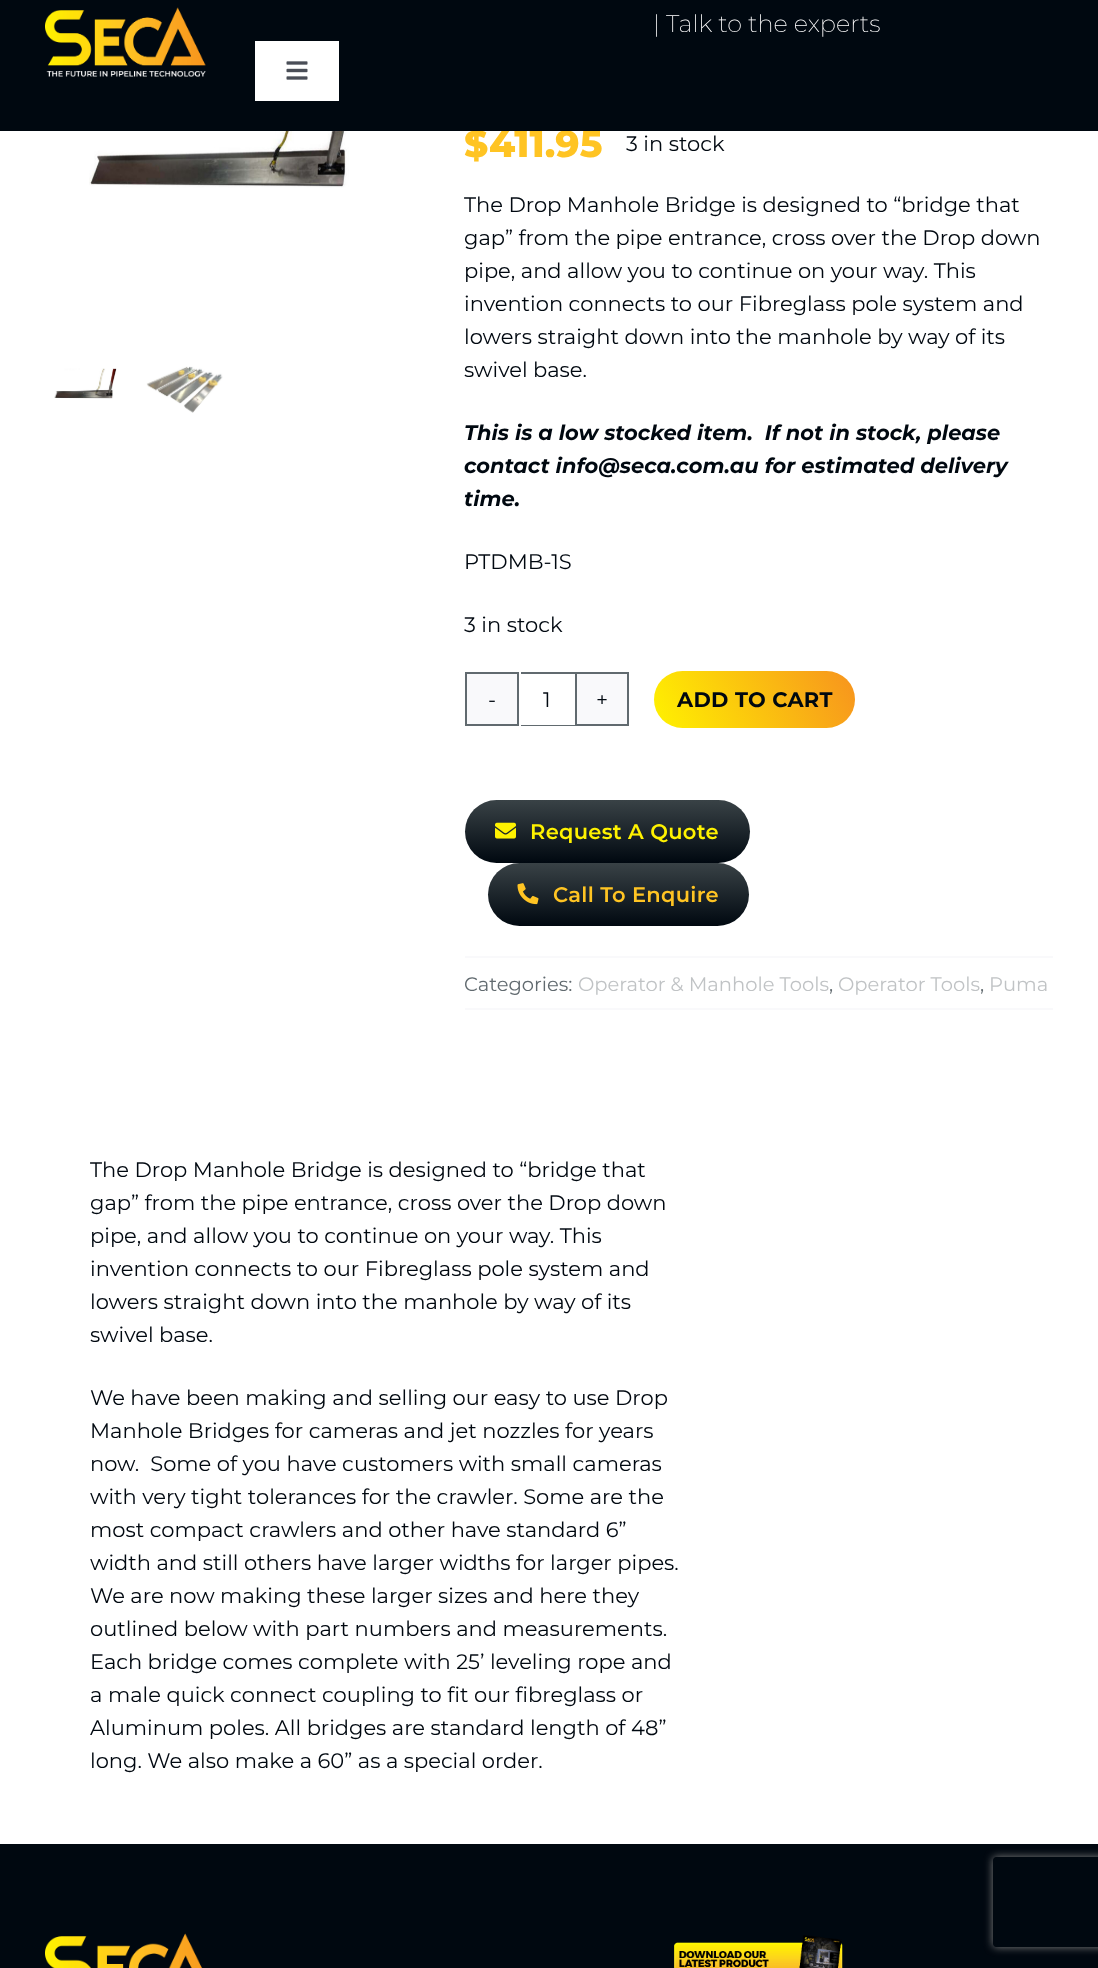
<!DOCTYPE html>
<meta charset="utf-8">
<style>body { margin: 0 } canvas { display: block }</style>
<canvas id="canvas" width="1098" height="1968"></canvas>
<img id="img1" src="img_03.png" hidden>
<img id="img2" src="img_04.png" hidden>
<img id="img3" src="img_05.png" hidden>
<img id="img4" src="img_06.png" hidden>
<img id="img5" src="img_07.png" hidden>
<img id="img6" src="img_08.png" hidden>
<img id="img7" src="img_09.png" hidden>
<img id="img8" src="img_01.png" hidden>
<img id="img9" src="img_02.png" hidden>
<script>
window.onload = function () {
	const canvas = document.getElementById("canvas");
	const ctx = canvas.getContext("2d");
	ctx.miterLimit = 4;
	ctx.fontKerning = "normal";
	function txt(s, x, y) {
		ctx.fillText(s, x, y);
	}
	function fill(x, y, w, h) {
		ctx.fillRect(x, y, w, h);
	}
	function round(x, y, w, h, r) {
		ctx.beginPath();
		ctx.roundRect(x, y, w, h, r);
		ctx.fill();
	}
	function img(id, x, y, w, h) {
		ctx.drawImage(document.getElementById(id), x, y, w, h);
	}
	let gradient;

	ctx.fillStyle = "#FFFFFF";
	fill(0, 0, 1098, 1968);
	img("img1", 89, 131, 275, 57);
	img("img2", 54, 368, 63, 31);
	img("img3", 146, 366, 77, 47);
	ctx.fillStyle = "#F9F9FB";
	ctx.beginPath();
	ctx.rect(466, 673, 52, 52);
	ctx.fill();
	ctx.strokeStyle = "#616A6F";
	ctx.lineWidth = 2;
	ctx.stroke();
	ctx.fillStyle = "#616A6F";
	fill(521, 672, 54, 2);
	fill(521, 725, 54, 1);
	ctx.fillStyle = "#F9F9FB";
	ctx.beginPath();
	ctx.rect(576, 673, 52, 52);
	ctx.fill();
	ctx.stroke();
	gradient = ctx.createLinearGradient(663, 746, 846, 652);
	gradient.addColorStop(0, "#FFF200");
	gradient.addColorStop(1, "#F7931E");
	ctx.fillStyle = gradient;
	round(654, 671, 201, 57, 28.5);
	gradient = ctx.createLinearGradient(608, 800, 608, 863);
	gradient.addColorStop(0, "#394246");
	gradient.addColorStop(1, "#000810");
	ctx.fillStyle = gradient;
	round(465, 800, 285, 63, 31.5);
	img("img4", 495, 822, 21, 17);
	gradient = ctx.createLinearGradient(618, 863, 618, 926);
	gradient.addColorStop(0, "#394246");
	gradient.addColorStop(1, "#000810");
	ctx.fillStyle = gradient;
	round(488, 863, 261, 63, 31.5);
	img("img5", 517, 883, 22, 22);
	ctx.fillStyle = "#F9F9FB";
	fill(465, 956, 588, 2);
	fill(465, 1008, 588, 2);
	ctx.fillStyle = "#000810";
	fill(0, 1844, 1098, 124);
	img("img6", 45, 1933, 158, 35);
	img("img7", 674, 1935, 169, 33);
	ctx.save();
	ctx.beginPath();
	ctx.moveTo(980, 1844);
	ctx.lineTo(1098, 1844);
	ctx.lineTo(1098, 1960);
	ctx.lineTo(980, 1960);
	ctx.closePath();
	ctx.moveTo(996, 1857);
	ctx.lineTo(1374, 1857);
	ctx.bezierCurveTo(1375.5, 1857, 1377, 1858.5, 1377, 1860);
	ctx.lineTo(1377, 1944);
	ctx.bezierCurveTo(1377, 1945.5, 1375.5, 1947, 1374, 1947);
	ctx.lineTo(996, 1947);
	ctx.bezierCurveTo(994.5, 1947, 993, 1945.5, 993, 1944);
	ctx.lineTo(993, 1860);
	ctx.bezierCurveTo(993, 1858.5, 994.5, 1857, 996, 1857);
	ctx.closePath();
	ctx.clip("evenodd");
	ctx.fillStyle = "#808080";
	ctx.filter = "blur(4px)";
	ctx.beginPath();
	ctx.roundRect(993, 1857, 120, 90, 3);
	ctx.fill();
	ctx.filter = "none";
	ctx.restore();
	ctx.font = "800 37.5px Montserrat";
	ctx.fillStyle = "#FFC423";
	txt("$", 464, 157);
	txt("411.95", 489, 157);
	ctx.fillStyle = "#000810";
	fill(0, 0, 1098, 131);
	img("img8", 45, 7, 161, 70);
	ctx.fillStyle = "#FFFFFF";
	fill(255, 41, 84, 60);
	img("img9", 286, 61, 22, 19);
	ctx.font = "200 24px Montserrat";
	txt("| Talk to the experts", 653, 32);
	ctx.font = "21px Montserrat";
	ctx.fillStyle = "#000810";
	txt("3 in stock", 626, 151);
	txt("The Drop Manhole Bridge is designed to “bridge that", 464, 212);
	txt("gap” from the pipe entrance, cross over the Drop down", 464, 245);
	txt("pipe, and allow you to continue on your way. This", 464, 278);
	txt("invention connects to our Fibreglass pole system and", 464, 311);
	txt("lowers straight down into the manhole by way of its", 464, 344);
	txt("swivel base.", 464, 377);
	ctx.font = "italic bold 21px Montserrat";
	txt("This is a low stocked item.  If not in stock, please", 464, 440);
	txt("contact info@seca.com.au for estimated delivery", 464, 473);
	txt("time.", 464, 506);
	ctx.font = "21px Montserrat";
	txt("PTDMB-1S", 464, 569);
	txt("3 in stock", 464, 632);
	txt("-", 488, 707);
	txt("1", 543, 707);
	txt("+", 596, 707);
	ctx.letterSpacing = "0.3px";
	ctx.font = "bold 21px Montserrat";
	txt("ADD TO CART", 677, 707);
	ctx.font = "600 21px Montserrat";
	ctx.fillStyle = "#FFF200";
	txt("Request A Quote", 530, 839);
	ctx.fillStyle = "#FFC423";
	txt("Call To Enquire", 553, 902);
	ctx.letterSpacing = "0px";
	ctx.font = "19.5px Montserrat";
	ctx.fillStyle = "#616A6F";
	txt("Categories:", 464, 991);
	ctx.fillStyle = "#C0C3C5";
	txt("Operator & Manhole Tools", 578, 991);
	ctx.fillStyle = "#616A6F";
	txt(",", 829, 991);
	ctx.fillStyle = "#C0C3C5";
	txt("Operator Tools", 838, 991);
	ctx.fillStyle = "#616A6F";
	txt(",", 980, 991);
	ctx.fillStyle = "#C0C3C5";
	txt("Puma", 989, 991);
	ctx.font = "21px Montserrat";
	ctx.fillStyle = "#000810";
	txt("The Drop Manhole Bridge is designed to “bridge that", 90, 1177);
	txt("gap” from the pipe entrance, cross over the Drop down", 90, 1210);
	txt("pipe, and allow you to continue on your way. This", 90, 1243);
	txt("invention connects to our Fibreglass pole system and", 90, 1276);
	txt("lowers straight down into the manhole by way of its", 90, 1309);
	txt("swivel base.", 90, 1342);
	txt("We have been making and selling our easy to use Drop", 90, 1405);
	txt("Manhole Bridges for cameras and jet nozzles for years", 90, 1438);
	txt("now.  Some of you have customers with small cameras", 90, 1471);
	txt("with very tight tolerances for the crawler. Some are the", 90, 1504);
	txt("most compact crawlers and other have standard 6”", 90, 1537);
	txt("width and still others have larger widths for larger pipes.", 90, 1570);
	txt("We are now making these larger sizes and here they", 90, 1603);
	txt("outlined below with part numbers and measurements.", 90, 1636);
	txt("Each bridge comes complete with 25’ leveling rope and", 90, 1669);
	txt("a male quick connect coupling to fit our fibreglass or", 90, 1702);
	txt("Aluminum poles. All bridges are standard length of 48”", 90, 1735);
	txt("long. We also make a 60” as a special order.", 90, 1768);
};
</script>
